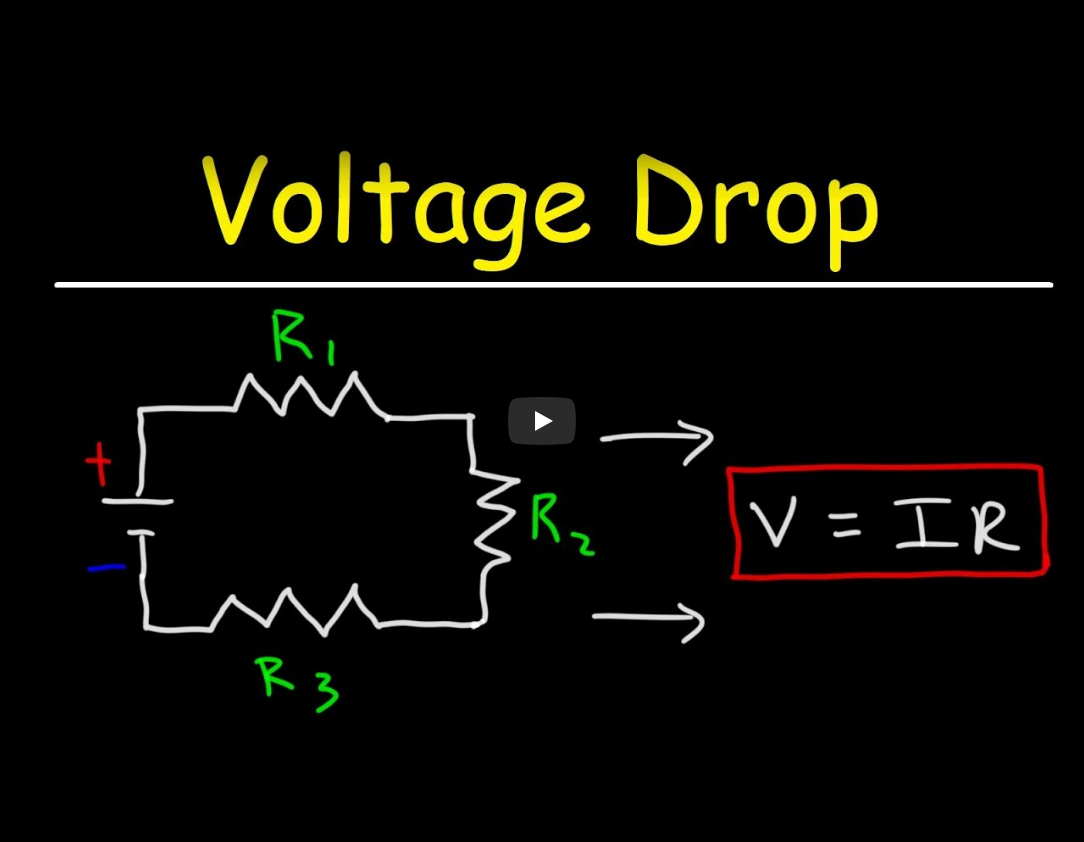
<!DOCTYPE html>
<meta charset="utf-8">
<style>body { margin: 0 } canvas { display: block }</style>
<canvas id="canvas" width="1084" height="842"></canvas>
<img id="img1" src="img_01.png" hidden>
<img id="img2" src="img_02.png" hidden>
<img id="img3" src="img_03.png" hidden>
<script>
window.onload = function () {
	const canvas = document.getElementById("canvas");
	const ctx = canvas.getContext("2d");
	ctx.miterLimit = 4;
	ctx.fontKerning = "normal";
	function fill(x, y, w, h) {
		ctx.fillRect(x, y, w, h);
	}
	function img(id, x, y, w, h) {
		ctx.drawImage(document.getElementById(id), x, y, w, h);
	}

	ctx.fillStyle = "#000000";
	fill(0, 0, 1084, 842);
	img("img1", 54, 143, 1003, 583);
	img("img2", 202, 148, 673, 50);
	img("img3", 508, 397, 68, 48);
};
</script>
